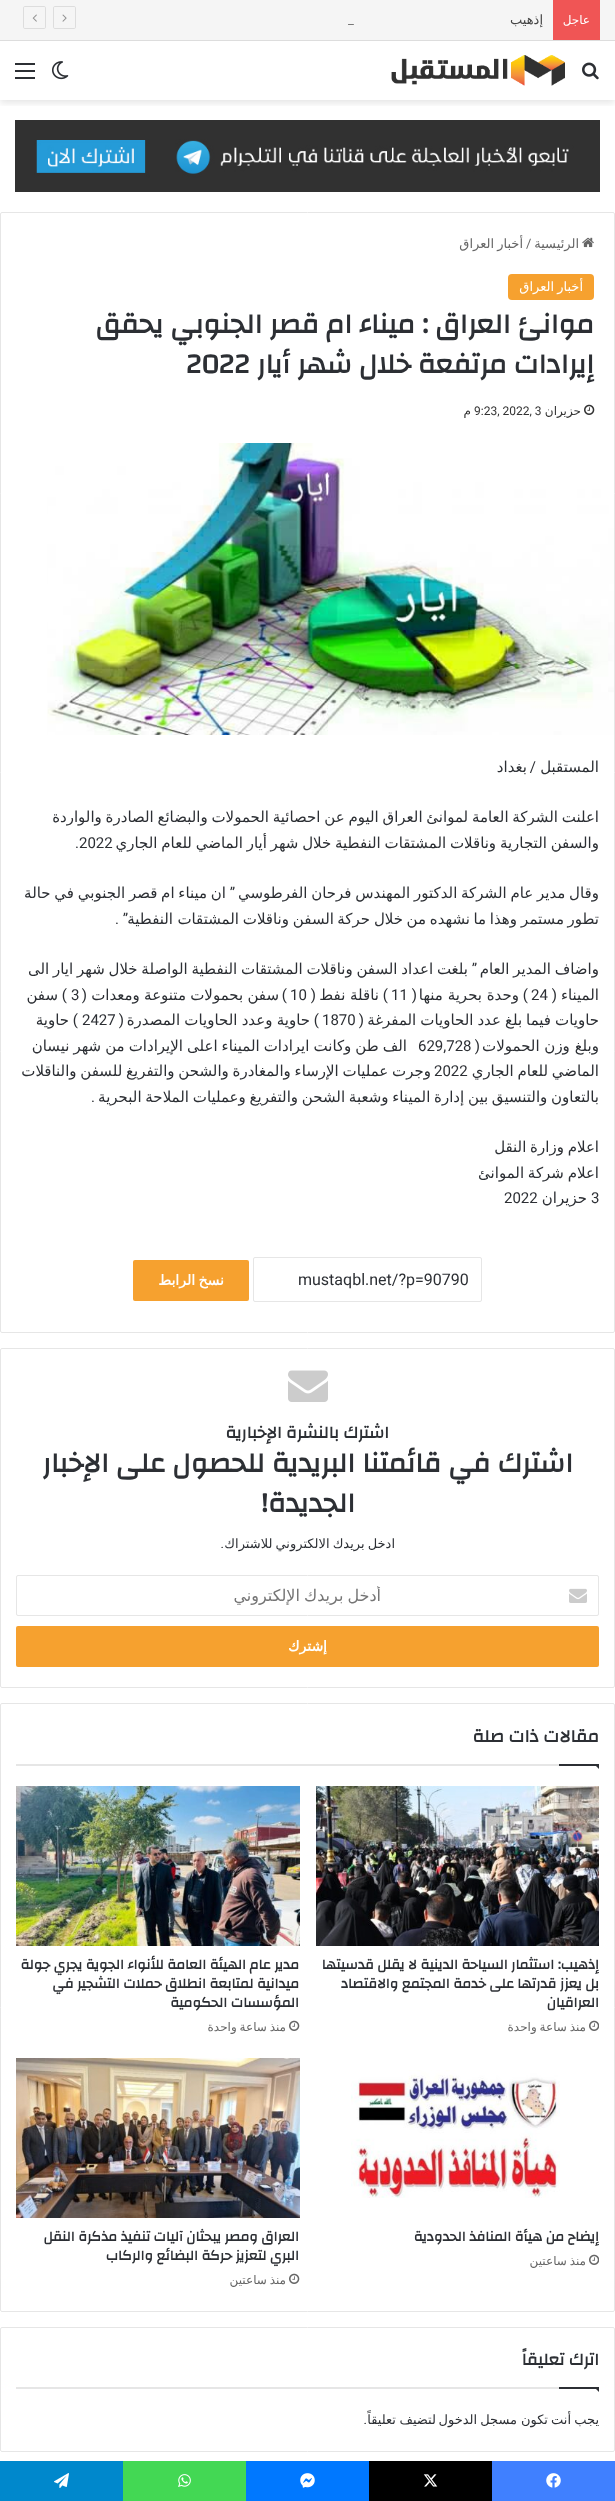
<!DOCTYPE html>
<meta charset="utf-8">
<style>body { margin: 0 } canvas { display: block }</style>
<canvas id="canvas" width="615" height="2501"></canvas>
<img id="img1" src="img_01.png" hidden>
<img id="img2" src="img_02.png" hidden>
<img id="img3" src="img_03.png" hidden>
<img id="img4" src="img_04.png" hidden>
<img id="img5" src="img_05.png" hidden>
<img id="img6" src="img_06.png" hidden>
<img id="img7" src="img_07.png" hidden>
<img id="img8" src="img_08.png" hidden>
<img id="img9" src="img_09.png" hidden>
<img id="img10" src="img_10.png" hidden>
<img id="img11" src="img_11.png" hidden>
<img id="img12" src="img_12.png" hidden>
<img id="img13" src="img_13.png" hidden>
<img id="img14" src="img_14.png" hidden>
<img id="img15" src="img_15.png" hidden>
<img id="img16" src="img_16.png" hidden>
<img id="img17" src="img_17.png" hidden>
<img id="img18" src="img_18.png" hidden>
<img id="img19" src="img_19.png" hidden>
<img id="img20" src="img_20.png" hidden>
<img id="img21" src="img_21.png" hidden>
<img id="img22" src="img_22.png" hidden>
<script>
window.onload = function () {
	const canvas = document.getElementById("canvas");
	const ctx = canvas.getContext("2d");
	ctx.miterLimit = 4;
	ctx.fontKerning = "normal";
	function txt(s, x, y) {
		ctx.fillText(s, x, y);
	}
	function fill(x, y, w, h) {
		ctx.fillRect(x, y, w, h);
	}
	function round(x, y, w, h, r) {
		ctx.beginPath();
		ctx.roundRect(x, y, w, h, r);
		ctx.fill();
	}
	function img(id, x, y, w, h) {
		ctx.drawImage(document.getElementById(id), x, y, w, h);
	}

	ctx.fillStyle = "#FFFFFF";
	fill(0, 0, 615, 2501);
	ctx.save();
	ctx.beginPath();
	ctx.rect(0, 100, 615, 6);
	ctx.clip();
	ctx.fillStyle = "rgba(0, 0, 0, 0.1)";
	ctx.filter = "blur(3.5px)";
	ctx.beginPath();
	ctx.rect(0, 44, 615, 59);
	ctx.fill();
	ctx.filter = "none";
	ctx.restore();
	ctx.fillStyle = "#F5F5F5";
	fill(0, 0, 615, 40);
	ctx.fillStyle = "#DDDDDD";
	fill(0, 40, 615, 1);
	ctx.fillStyle = "#F05555";
	fill(553, 0, 47, 40);
	ctx.beginPath();
	ctx.moveTo(74, 28.5);
	ctx.lineTo(55, 28.5);
	ctx.bezierCurveTo(54, 28.5, 53.5, 28, 53.5, 27);
	ctx.lineTo(53.5, 8);
	ctx.bezierCurveTo(53.5, 7, 54, 6.5, 55, 6.5);
	ctx.lineTo(74, 6.5);
	ctx.bezierCurveTo(75, 6.5, 75.5, 7, 75.5, 8);
	ctx.lineTo(75.5, 27);
	ctx.bezierCurveTo(75.5, 28, 75, 28.5, 74, 28.5);
	ctx.closePath();
	ctx.strokeStyle = "#DDDDDD";
	ctx.stroke();
	img("img1", 62, 14, 5, 8);
	ctx.beginPath();
	ctx.moveTo(44, 28.5);
	ctx.lineTo(25, 28.5);
	ctx.bezierCurveTo(24, 28.5, 23.5, 28, 23.5, 27);
	ctx.lineTo(23.5, 8);
	ctx.bezierCurveTo(23.5, 7, 24, 6.5, 25, 6.5);
	ctx.lineTo(44, 6.5);
	ctx.bezierCurveTo(45, 6.5, 45.5, 7, 45.5, 8);
	ctx.lineTo(45.5, 27);
	ctx.bezierCurveTo(45.5, 28, 45, 28.5, 44, 28.5);
	ctx.closePath();
	ctx.stroke();
	img("img2", 32, 14, 5, 8);
	img("img3", 582, 62, 17, 18);
	img("img4", 391, 55, 174, 31);
	img("img5", 52, 61, 17, 19);
	ctx.fillStyle = "#2C2F34";
	fill(15, 70, 20, 2);
	fill(15, 63, 20, 2);
	fill(15, 77, 20, 2);
	img("img6", 15, 120, 585, 72);
	ctx.beginPath();
	ctx.roundRect(0.5, 212.5, 614, 1120, 1.5);
	ctx.strokeStyle = "#E6E6E6";
	ctx.stroke();
	img("img7", 582, 237, 12, 11);
	ctx.fillStyle = "#F6A12F";
	round(508, 274, 86, 26, 4);
	img("img8", 584, 404, 11, 11);
	img("img9", 47, 443, 567, 292);
	ctx.beginPath();
	ctx.roundRect(253.5, 1257.5, 228, 44, 1.5);
	ctx.stroke();
	round(133, 1260, 116, 41, 2);
	ctx.beginPath();
	ctx.roundRect(0.5, 1348.5, 614, 339, 1.5);
	ctx.stroke();
	img("img10", 288, 1370, 40, 32);
	ctx.beginPath();
	ctx.roundRect(16.5, 1575.5, 582, 40, 1.5);
	ctx.stroke();
	img("img11", 569, 1588, 18, 15);
	round(16, 1626, 583, 41, 2);
	ctx.beginPath();
	ctx.roundRect(0.5, 1703.5, 614, 608, 1.5);
	ctx.stroke();
	ctx.fillStyle = "#E6E6E6";
	fill(16, 1764, 543, 2);
	ctx.fillStyle = "#2C2F34";
	ctx.beginPath();
	ctx.moveTo(594, 1764);
	ctx.lineTo(599, 1764);
	ctx.lineTo(599, 1769);
	ctx.closePath();
	ctx.fill();
	fill(559, 1764, 40, 2);
	img("img12", 316, 1786, 283, 160);
	img("img13", 589, 2020, 10, 11);
	img("img14", 16, 1786, 284, 160);
	img("img15", 289, 2020, 11, 11);
	img("img16", 351, 2070, 209, 128);
	img("img13", 589, 2254, 10, 11);
	img("img17", 16, 2058, 284, 160);
	img("img15", 289, 2273, 11, 11);
	ctx.beginPath();
	ctx.roundRect(0.5, 2327.5, 614, 124, 1.5);
	ctx.stroke();
	ctx.fillStyle = "#E6E6E6";
	fill(16, 2387, 543, 2);
	ctx.fillStyle = "#2C2F34";
	ctx.beginPath();
	ctx.moveTo(594, 2387);
	ctx.lineTo(599, 2387);
	ctx.lineTo(599, 2392);
	ctx.closePath();
	ctx.fill();
	fill(559, 2387, 40, 2);
	ctx.fillStyle = "#4080FF";
	fill(492, 2461, 123, 40);
	img("img18", 546, 2473, 15, 15);
	ctx.fillStyle = "#000000";
	fill(369, 2461, 123, 40);
	img("img19", 423, 2474, 15, 13);
	ctx.fillStyle = "#0078FF";
	fill(246, 2461, 123, 40);
	img("img20", 300, 2473, 15, 15);
	ctx.fillStyle = "#43D854";
	fill(123, 2461, 123, 40);
	img("img21", 178, 2474, 13, 13);
	ctx.fillStyle = "#0088CC";
	fill(0, 2461, 123, 40);
	img("img22", 54, 2473, 15, 15);
	ctx.direction = "rtl";
	ctx.font = "12px DejaVu Sans";
	ctx.fillStyle = "#FFFFFF";
	txt("عاجل", 590, 24);
	ctx.font = "13px DejaVu Sans";
	ctx.fillStyle = "#444444";
	txt("إذهيب", 543, 24);
	ctx.direction = "ltr";
	ctx.font = "13px Roboto";
	ctx.fillStyle = "#757575";
	txt("_", 348, 24);
	ctx.direction = "rtl";
	ctx.font = "13px DejaVu Sans";
	ctx.fillStyle = "#666666";
	txt("الرئيسية", 579, 248);
	ctx.direction = "ltr";
	ctx.font = "13px Roboto";
	txt("/", 526, 248);
	ctx.wordSpacing = "-1px";
	ctx.direction = "rtl";
	ctx.font = "13px DejaVu Sans";
	txt("أخبار العراق", 523, 248);
	ctx.fillStyle = "#FFFFFF";
	txt("أخبار العراق", 583, 291);
	ctx.wordSpacing = "0px";
	ctx.font = "bold 28px Changa";
	ctx.fillStyle = "#2C2F34";
	txt("موانئ العراق : ميناء ام قصر الجنوبي يحقق", 594, 333);
	txt("إيرادات مرتفعة خلال شهر أيار", 594, 373);
	ctx.direction = "ltr";
	txt("2022", 186, 373);
	ctx.direction = "rtl";
	ctx.font = "12px DejaVu Sans";
	ctx.fillStyle = "#333333";
	txt("حزيران", 581, 415);
	ctx.direction = "ltr";
	ctx.font = "12px Roboto";
	txt("9:23, 2022, 3", 474, 415);
	ctx.direction = "rtl";
	ctx.font = "12px DejaVu Sans";
	txt("م", 471, 415);
	ctx.font = "15px DejaVu Sans";
	ctx.fillStyle = "#2C2F34";
	txt("المستقبل", 599, 772);
	ctx.font = "15px Roboto";
	txt("/", 536, 772);
	ctx.font = "15px DejaVu Sans";
	txt("بغداد", 527, 772);
	ctx.wordSpacing = "-1px";
	txt("اعلنت الشركة العامة لموانئ العراق اليوم عن احصائية الحمولات والبضائع الصادرة والواردة", 599, 822);
	txt("والسفن التجارية وناقلات المشتقات النفطية خلال شهر أيار الماضي للعام الجاري", 599, 848);
	ctx.wordSpacing = "0px";
	ctx.direction = "ltr";
	ctx.font = "15px Roboto";
	txt(".2022", 75, 848);
	ctx.wordSpacing = "-1px";
	ctx.direction = "rtl";
	ctx.font = "15px DejaVu Sans";
	txt("وقال مدير عام الشركة الدكتور المهندس فرحان الفرطوسي", 599, 898);
	txt("ان ميناء ام قصر الجنوبي في حالة", 226, 898);
	ctx.wordSpacing = "0px";
	ctx.font = "15px Roboto";
	txt("”", 235, 898);
	ctx.font = "15px DejaVu Sans";
	txt("تطور", 599, 924);
	txt("مستمر", 564, 924);
	txt("وهذا", 517, 924);
	txt("ما", 486, 924);
	txt("نشهده", 470, 924);
	txt("من", 426, 924);
	txt("خلال", 403, 924);
	txt("حركة", 370, 924);
	txt("السفن", 334, 924);
	txt("وناقلات", 289, 924);
	txt("المشتقات", 239, 924);
	txt("النفطية", 173, 924);
	ctx.font = "15px Roboto";
	txt("” .", 128, 924);
	ctx.wordSpacing = "-1px";
	ctx.font = "15px DejaVu Sans";
	txt("بلغت اعداد السفن وناقلات المشتقات النفطية الواصلة خلال شهر ايار الى", 468, 974);
	txt("واضاف المدير العام", 599, 974);
	ctx.wordSpacing = "0px";
	ctx.font = "15px Roboto";
	txt("”", 477, 974);
	ctx.font = "15px DejaVu Sans";
	txt("الميناء", 599, 1000);
	ctx.font = "15px Roboto";
	txt("(", 557, 1000);
	ctx.direction = "ltr";
	txt("24", 531, 1000);
	ctx.direction = "rtl";
	txt(")", 528, 1000);
	ctx.font = "15px DejaVu Sans";
	txt("وحدة بحرية منها", 519, 1000);
	ctx.font = "15px Roboto";
	txt("(", 417, 1000);
	ctx.direction = "ltr";
	txt("11", 391, 1000);
	ctx.direction = "rtl";
	txt(")", 388, 1000);
	ctx.font = "15px DejaVu Sans";
	txt("ناقلة نفط", 379, 1000);
	ctx.font = "15px Roboto";
	txt("(", 316, 1000);
	ctx.direction = "ltr";
	txt("10", 290, 1000);
	ctx.direction = "rtl";
	txt(")", 287, 1000);
	ctx.wordSpacing = "-0.5px";
	ctx.font = "15px DejaVu Sans";
	txt("سفن بحمولات متنوعة ومعدات", 279, 1000);
	ctx.wordSpacing = "0px";
	ctx.font = "15px Roboto";
	txt("(", 87, 1000);
	ctx.direction = "ltr";
	txt("3", 71, 1000);
	ctx.direction = "rtl";
	txt(")", 67, 1000);
	ctx.font = "15px DejaVu Sans";
	txt("سفن", 58, 1000);
	ctx.wordSpacing = "-0.75px";
	txt("حاويات فيما بلغ عدد الحاويات المفرغة", 599, 1025);
	ctx.wordSpacing = "0px";
	ctx.font = "15px Roboto";
	txt("(", 364, 1025);
	ctx.direction = "ltr";
	txt("1870", 322, 1025);
	ctx.direction = "rtl";
	txt(")", 319, 1025);
	ctx.wordSpacing = "-0.5px";
	ctx.font = "15px DejaVu Sans";
	txt("حاوية وعدد الحاويات المصدرة", 310, 1025);
	ctx.wordSpacing = "0px";
	ctx.font = "15px Roboto";
	txt("(", 124, 1025);
	ctx.direction = "ltr";
	txt("2427", 82, 1025);
	ctx.direction = "rtl";
	txt(")", 78, 1025);
	ctx.font = "15px DejaVu Sans";
	txt("حاوية", 69, 1025);
	txt("وبلغ وزن الحمولات", 599, 1051);
	ctx.font = "15px Roboto";
	txt("(", 480, 1051);
	ctx.direction = "ltr";
	txt("629,728", 418, 1051);
	ctx.wordSpacing = "-0.75px";
	ctx.direction = "rtl";
	ctx.font = "15px DejaVu Sans";
	txt("الف طن وكانت ايرادات الميناء اعلى الإيرادات من شهر نيسان", 407, 1051);
	ctx.wordSpacing = "-1px";
	txt("الماضي للعام الجاري", 599, 1076);
	txt("وجرت عمليات الإرساء والمغادرة والشحن والتفريغ للسفن والناقلات", 431, 1076);
	ctx.wordSpacing = "0px";
	ctx.direction = "ltr";
	ctx.font = "15px Roboto";
	txt("2022", 434, 1076);
	ctx.wordSpacing = "-1px";
	ctx.direction = "rtl";
	ctx.font = "15px DejaVu Sans";
	txt("بالتعاون والتنسيق بين إدارة الميناء وشعبة الشحن والتفريغ وعمليات الملاحة البحرية", 599, 1102);
	ctx.wordSpacing = "0px";
	ctx.font = "15px Roboto";
	txt(".", 95, 1102);
	ctx.wordSpacing = "-1px";
	ctx.font = "15px DejaVu Sans";
	txt("اعلام وزارة النقل", 599, 1152);
	txt("اعلام شركة الموانئ", 599, 1178);
	ctx.wordSpacing = "0px";
	ctx.direction = "ltr";
	ctx.font = "15px Roboto";
	txt("3", 591, 1203);
	ctx.direction = "rtl";
	ctx.font = "15px DejaVu Sans";
	txt("حزيران", 587, 1203);
	ctx.direction = "ltr";
	ctx.font = "15px Roboto";
	txt("2022", 504, 1203);
	ctx.font = "16px Roboto";
	txt("mustaqbl.net/?p=90790", 298, 1285);
	ctx.wordSpacing = "-1px";
	ctx.direction = "rtl";
	ctx.font = "bold 14px DejaVu Sans";
	ctx.fillStyle = "#FFFFFF";
	txt("نسخ الرابط", 224, 1285);
	ctx.wordSpacing = "0px";
	ctx.font = "bold 17px Changa";
	ctx.fillStyle = "#2C2F34";
	txt("اشترك بالنشرة الإخبارية", 389, 1438);
	ctx.font = "bold 28px Changa";
	txt("اشترك في قائمتنا البريدية للحصول على الإخبار", 573, 1472);
	txt("الجديدة!", 355, 1512);
	ctx.wordSpacing = "-1px";
	ctx.font = "13px DejaVu Sans";
	txt("ادخل بريدك الالكتروني للاشتراك", 395, 1548);
	ctx.wordSpacing = "0px";
	ctx.font = "13px Roboto";
	txt(".", 224, 1548);
	ctx.save();
	ctx.beginPath();
	ctx.rect(47, 1586, 521, 19);
	ctx.clip();
	ctx.wordSpacing = "-1px";
	ctx.font = "16px DejaVu Sans";
	ctx.fillStyle = "#757575";
	txt("أدخل بريدك الإلكتروني", 381, 1601);
	ctx.restore();
	ctx.font = "bold 14px DejaVu Sans";
	ctx.fillStyle = "#FFFFFF";
	txt("إشترك", 327, 1651);
	ctx.font = "bold 18px Changa";
	ctx.fillStyle = "#2C2F34";
	txt("مقالات ذات صلة", 599, 1742);
	ctx.font = "bold 14px Changa";
	txt("إذهيب: استثمار السياحة الدينية لا يقلل قدسيتها", 599, 1969);
	txt("بل يعزز قدرتها على خدمة المجتمع والاقتصاد", 599, 1988);
	txt("العراقيان", 599, 2007);
	ctx.wordSpacing = "-1px";
	ctx.font = "12px DejaVu Sans";
	ctx.fillStyle = "#666666";
	txt("منذ ساعة واحدة", 586, 2031);
	ctx.wordSpacing = "0px";
	ctx.font = "bold 14px Changa";
	ctx.fillStyle = "#2C2F34";
	txt("مدير عام الهيئة العامة للأنواء الجوية يجري جولة", 299, 1969);
	txt("ميدانية لمتابعة انطلاق حملات التشجير في", 299, 1988);
	txt("المؤسسات الحكومية", 299, 2007);
	ctx.wordSpacing = "-1px";
	ctx.font = "12px DejaVu Sans";
	ctx.fillStyle = "#666666";
	txt("منذ ساعة واحدة", 286, 2031);
	ctx.wordSpacing = "0px";
	ctx.font = "bold 14px Changa";
	ctx.fillStyle = "#2C2F34";
	txt("إيضاح من هيأة المنافذ الحدودية", 599, 2241);
	ctx.wordSpacing = "-1px";
	ctx.font = "12px DejaVu Sans";
	ctx.fillStyle = "#666666";
	txt("منذ ساعتين", 586, 2265);
	ctx.wordSpacing = "0px";
	ctx.font = "bold 14px Changa";
	ctx.fillStyle = "#2C2F34";
	txt("العراق ومصر يبحثان آليات تنفيذ مذكرة النقل", 299, 2241);
	txt("البري لتعزيز حركة البضائع والركاب", 299, 2260);
	ctx.wordSpacing = "-1px";
	ctx.font = "12px DejaVu Sans";
	ctx.fillStyle = "#666666";
	txt("منذ ساعتين", 286, 2284);
	ctx.wordSpacing = "0px";
	ctx.font = "bold 17px Changa";
	ctx.fillStyle = "#2C2F34";
	txt("اترك تعليقاً", 599, 2365);
	ctx.wordSpacing = "-1px";
	ctx.font = "13px DejaVu Sans";
	txt("يجب أنت تكون", 599, 2424);
	txt("مسجل الدخول", 517, 2424);
	ctx.wordSpacing = "-0.5px";
	txt("لتضيف تعليقاً", 436, 2424);
	ctx.wordSpacing = "0px";
	ctx.font = "13px Roboto";
	txt(".", 367, 2424);
};
</script>
